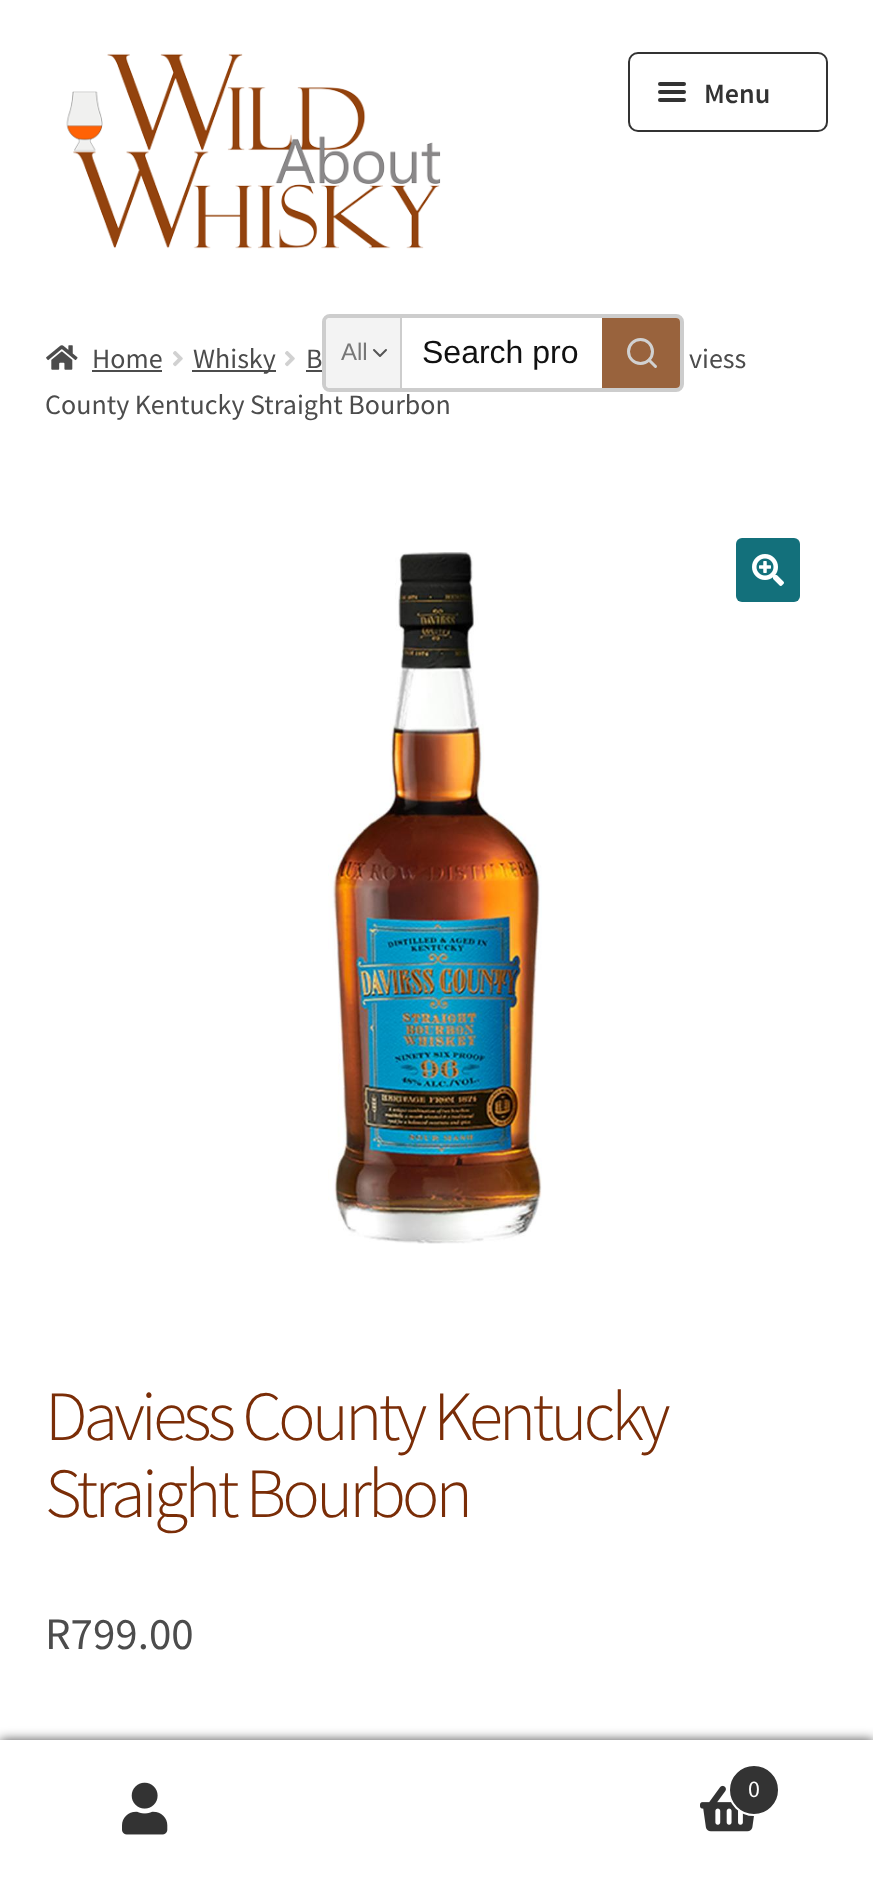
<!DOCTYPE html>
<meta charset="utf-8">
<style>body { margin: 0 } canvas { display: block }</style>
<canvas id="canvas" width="873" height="1878"></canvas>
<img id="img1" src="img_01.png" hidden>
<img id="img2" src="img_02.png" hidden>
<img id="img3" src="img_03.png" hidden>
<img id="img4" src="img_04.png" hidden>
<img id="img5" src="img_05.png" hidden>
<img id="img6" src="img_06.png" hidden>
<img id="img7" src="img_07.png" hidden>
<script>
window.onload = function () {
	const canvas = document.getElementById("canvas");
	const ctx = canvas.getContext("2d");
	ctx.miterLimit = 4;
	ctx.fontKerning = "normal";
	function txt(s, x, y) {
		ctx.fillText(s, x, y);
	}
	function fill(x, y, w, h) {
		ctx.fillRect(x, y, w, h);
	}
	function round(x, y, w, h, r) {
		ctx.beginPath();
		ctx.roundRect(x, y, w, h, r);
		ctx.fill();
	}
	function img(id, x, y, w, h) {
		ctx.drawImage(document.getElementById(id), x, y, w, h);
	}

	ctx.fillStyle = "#FFFFFF";
	fill(0, 0, 873, 1878);
	img("img1", 66, 53, 375, 196);
	ctx.beginPath();
	ctx.roundRect(629, 53, 198, 78, 9);
	ctx.strokeStyle = "#333333";
	ctx.lineWidth = 2;
	ctx.stroke();
	ctx.fillStyle = "#333333";
	round(658, 82, 28, 4, 2);
	round(658, 90, 28, 4, 2);
	round(658, 98, 28, 4, 2);
	ctx.beginPath();
	ctx.roundRect(324, 316, 358, 74, 6);
	ctx.strokeStyle = "#CDCDCD";
	ctx.lineWidth = 4;
	ctx.stroke();
	ctx.fillStyle = "#F3F3F3";
	ctx.beginPath();
	ctx.roundRect(326, 318, 76, 70, [4, 0, 0, 4]);
	ctx.fill();
	ctx.fillStyle = "#CDCDCD";
	fill(400, 318, 2, 70);
	ctx.beginPath();
	ctx.moveTo(374, 350);
	ctx.lineTo(380, 356);
	ctx.lineTo(386, 350);
	ctx.strokeStyle = "#555555";
	ctx.lineWidth = 2;
	ctx.lineCap = "round";
	ctx.lineJoin = "round";
	ctx.stroke();
	ctx.fillStyle = "#99633D";
	ctx.beginPath();
	ctx.roundRect(602, 318, 78, 70, [0, 4, 4, 0]);
	ctx.fill();
	ctx.beginPath();
	ctx.arc(640.5, 351.5, 12, 0, Math.PI * 2);
	ctx.strokeStyle = "#D1D1D1";
	ctx.lineWidth = 3;
	ctx.stroke();
	ctx.beginPath();
	ctx.moveTo(655.5, 366.5);
	ctx.lineTo(649, 360);
	ctx.stroke();
	img("img2", 46, 345, 32, 25);
	ctx.fillStyle = "#4C4C4C";
	fill(92, 370, 70, 2);
	img("img3", 173, 351, 10, 16);
	fill(192, 370, 84, 2);
	img("img3", 285, 351, 10, 16);
	fill(306, 370, 16, 2);
	img("img4", 328, 552, 214, 692);
	ctx.fillStyle = "#13707B";
	round(736, 538, 64, 64, 6);
	img("img5", 752, 554, 32, 32);
	ctx.fillStyle = "rgba(0, 0, 0, 0.7)";
	ctx.filter = "blur(6px)";
	ctx.beginPath();
	ctx.rect(0, 1740, 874, 138);
	ctx.fill();
	ctx.filter = "none";
	ctx.fillStyle = "#FFFFFF";
	fill(0, 1740, 873, 138);
	img("img6", 122, 1782, 46, 53);
	img("img7", 700, 1785, 55, 47);
	ctx.fillStyle = "#333333";
	ctx.beginPath();
	ctx.arc(754, 1790, 25, 0, Math.PI * 2);
	ctx.fill();
	ctx.strokeStyle = "#FFFFFF";
	ctx.lineWidth = 2;
	ctx.stroke();
	ctx.font = "600 28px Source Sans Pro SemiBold";
	txt("Menu", 704, 103);
	ctx.font = "24px Liberation Sans";
	ctx.fillStyle = "#777777";
	txt("All", 341, 360);
	ctx.font = "32px Liberation Sans";
	ctx.fillStyle = "#111111";
	txt("Search pro", 422, 363);
	ctx.font = "28px Source Sans Pro";
	ctx.fillStyle = "#4C4C4C";
	txt("Home", 92, 368);
	txt("Whisky", 193, 368);
	txt("B", 306, 368);
	txt("viess", 689, 368);
	txt("County Kentucky Straight Bourbon", 45, 414);
	ctx.letterSpacing = "-4px";
	ctx.font = "300 70.5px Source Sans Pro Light";
	ctx.fillStyle = "#7A2D07";
	txt("Daviess County Kentucky", 45, 1440);
	txt("Straight Bourbon", 45, 1517);
	ctx.letterSpacing = "0px";
	ctx.font = "45px Source Sans Pro";
	ctx.fillStyle = "#4C4C4C";
	txt("R799.00", 45, 1649);
	ctx.font = "24px Source Sans Pro";
	ctx.fillStyle = "#FFFFFF";
	txt("0", 748, 1797);
};
</script>
